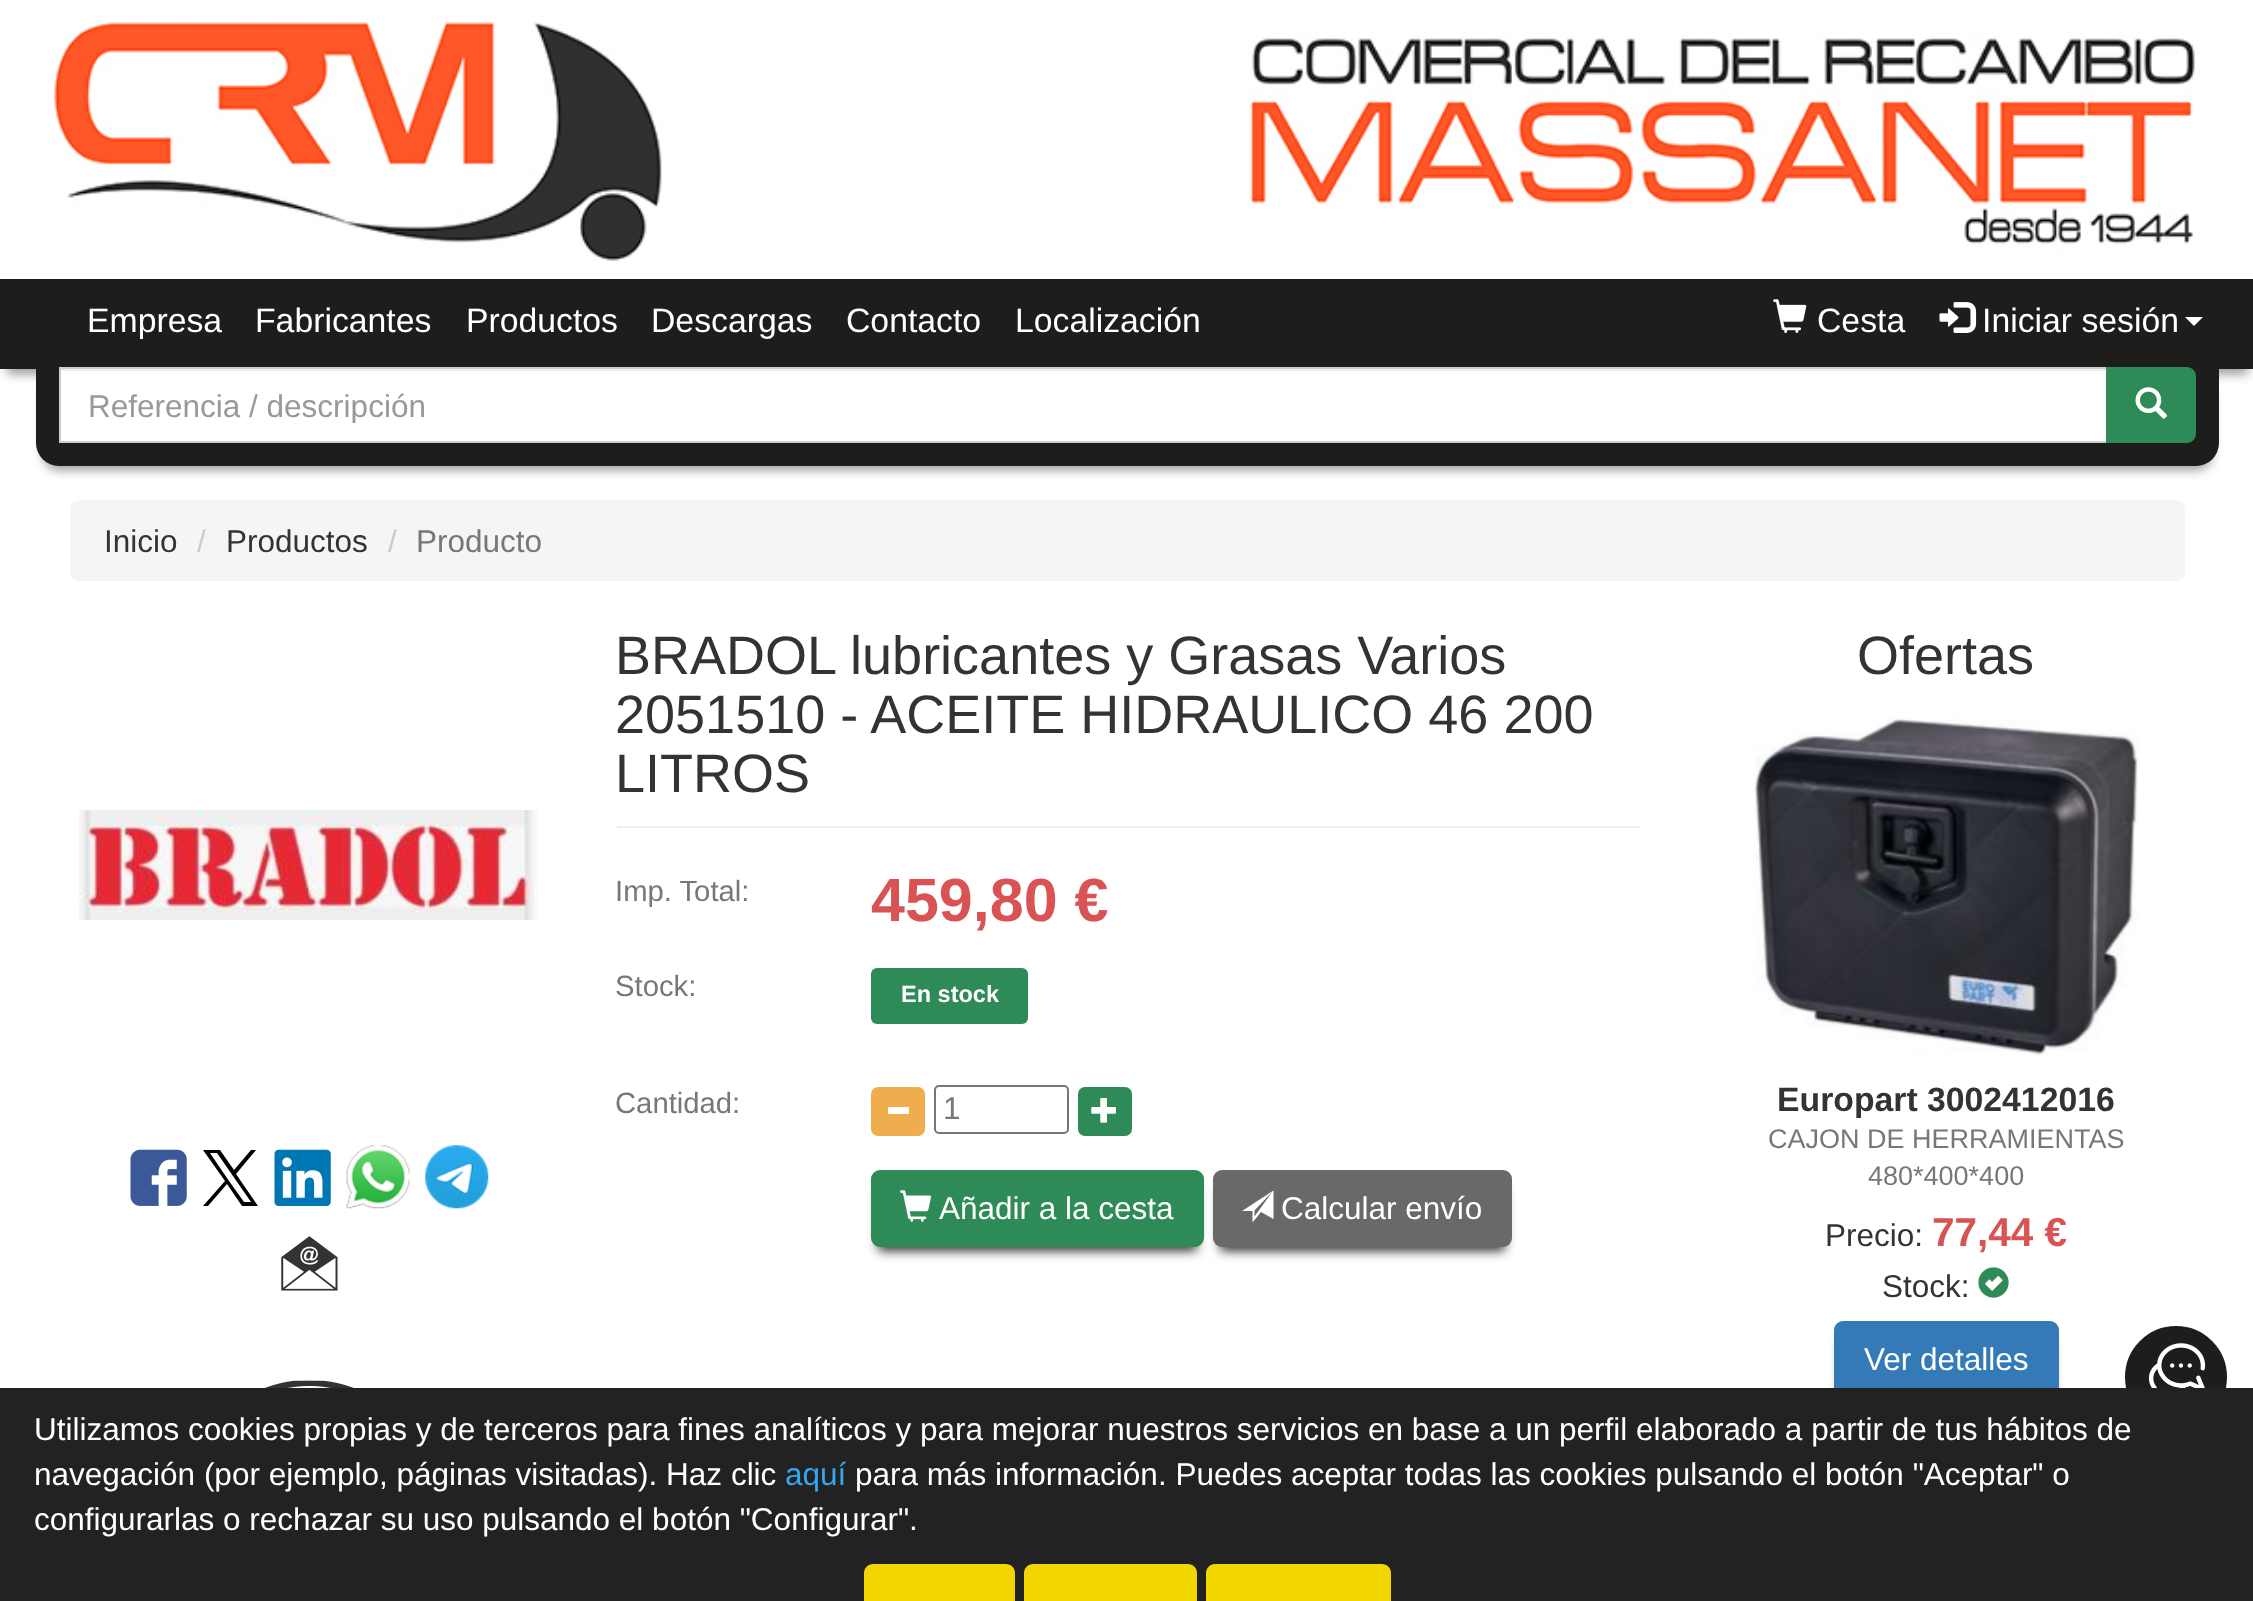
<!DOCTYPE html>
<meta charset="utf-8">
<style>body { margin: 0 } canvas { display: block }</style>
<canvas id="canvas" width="2253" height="1601"></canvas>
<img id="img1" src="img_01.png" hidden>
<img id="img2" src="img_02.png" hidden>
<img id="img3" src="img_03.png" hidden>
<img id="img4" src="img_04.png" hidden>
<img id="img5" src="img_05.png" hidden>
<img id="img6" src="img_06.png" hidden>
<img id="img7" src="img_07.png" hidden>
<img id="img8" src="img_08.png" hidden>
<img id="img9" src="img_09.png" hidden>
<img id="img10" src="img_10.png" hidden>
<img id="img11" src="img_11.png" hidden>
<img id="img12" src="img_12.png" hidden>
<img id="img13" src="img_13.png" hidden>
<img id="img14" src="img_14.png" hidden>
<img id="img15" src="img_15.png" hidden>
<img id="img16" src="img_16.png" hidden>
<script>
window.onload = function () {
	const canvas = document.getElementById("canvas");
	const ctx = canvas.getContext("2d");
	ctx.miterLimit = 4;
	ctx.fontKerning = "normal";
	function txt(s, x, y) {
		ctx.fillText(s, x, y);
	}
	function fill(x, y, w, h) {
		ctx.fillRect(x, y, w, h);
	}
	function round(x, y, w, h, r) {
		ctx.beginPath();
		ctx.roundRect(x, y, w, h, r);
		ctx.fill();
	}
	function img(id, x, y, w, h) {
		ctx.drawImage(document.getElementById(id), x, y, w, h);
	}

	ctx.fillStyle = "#FFFFFF";
	fill(0, 0, 2253, 1601);
	img("img1", 54, 22, 2141, 239);
	ctx.fillStyle = "rgba(0, 0, 0, 0.4)";
	ctx.filter = "blur(5.5px)";
	ctx.beginPath();
	ctx.rect(7, 297, 2241, 77);
	ctx.fill();
	ctx.filter = "none";
	ctx.fillStyle = "#1D1D1B";
	fill(0, 279, 2253, 90);
	img("img2", 1773, 299, 34, 34);
	img("img3", 1939, 302, 38, 31);
	ctx.fillStyle = "#FFFFFF";
	ctx.beginPath();
	ctx.moveTo(2185, 317);
	ctx.lineTo(2203, 317);
	ctx.lineTo(2194, 326);
	ctx.closePath();
	ctx.fill();
	ctx.fillStyle = "rgba(0, 0, 0, 0.4)";
	ctx.filter = "blur(5.5px)";
	ctx.beginPath();
	ctx.roundRect(43, 385, 2169, 85, 16);
	ctx.fill();
	ctx.filter = "none";
	ctx.fillStyle = "#1D1D1B";
	ctx.beginPath();
	ctx.roundRect(36, 367, 2183, 99, [0, 0, 23, 23]);
	ctx.fill();
	ctx.fillStyle = "#FFFFFF";
	fill(61, 371, 2045, 70);
	ctx.fillStyle = "#ECECEC";
	fill(61, 369, 2045, 2);
	ctx.strokeStyle = "#CCCCCC";
	ctx.lineWidth = 2;
	ctx.strokeRect(60, 368, 2047, 74);
	ctx.fillStyle = "#2E8B57";
	ctx.beginPath();
	ctx.roundRect(2107, 368, 88, 74, [0, 8, 8, 0]);
	ctx.fill();
	ctx.strokeStyle = "#2E8B57";
	ctx.stroke();
	img("img4", 2135, 387, 32, 32);
	ctx.fillStyle = "#F5F5F5";
	round(70, 500, 2115, 81, 9);
	ctx.fillStyle = "#EEEEEE";
	fill(617, 826, 1023, 2);
	img("img5", 79, 810, 459, 110);
	img("img6", 130, 1149, 57, 57);
	ctx.fillStyle = "#000000";
	ctx.beginPath();
	ctx.moveTo(236, 1174);
	ctx.lineTo(256, 1150);
	ctx.lineTo(251, 1150);
	ctx.lineTo(234, 1170);
	ctx.lineTo(220, 1150);
	ctx.lineTo(203, 1150);
	ctx.lineTo(225, 1181);
	ctx.lineTo(203, 1206);
	ctx.lineTo(208, 1206);
	ctx.lineTo(227, 1184);
	ctx.lineTo(242, 1206);
	ctx.lineTo(258, 1206);
	ctx.closePath();
	ctx.moveTo(229, 1181);
	ctx.lineTo(210, 1153);
	ctx.lineTo(217, 1153);
	ctx.lineTo(251, 1202);
	ctx.lineTo(244, 1202);
	ctx.closePath();
	ctx.fill();
	img("img7", 274, 1149, 57, 57);
	img("img8", 346, 1145, 64, 64);
	img("img9", 425, 1145, 64, 64);
	img("img10", 281, 1236, 57, 55);
	img("img11", 265, 1380, 89, 8);
	ctx.fillStyle = "#2E8B57";
	round(871, 968, 157, 56, 6);
	ctx.fillStyle = "#F0AD4E";
	ctx.beginPath();
	ctx.roundRect(872, 1088, 52, 47, 6);
	ctx.fill();
	ctx.strokeStyle = "#F0AD4E";
	ctx.stroke();
	ctx.fillStyle = "#FFFFFF";
	fill(888, 1107, 21, 7);
	ctx.beginPath();
	ctx.roundRect(935, 1086, 133, 47, 4);
	ctx.strokeStyle = "#767676";
	ctx.stroke();
	ctx.fillStyle = "#2E8B57";
	ctx.beginPath();
	ctx.roundRect(1079, 1088, 52, 47, 6);
	ctx.fill();
	ctx.strokeStyle = "#2E8B57";
	ctx.stroke();
	img("img12", 1091, 1098, 25, 25);
	ctx.fillStyle = "rgba(0, 0, 0, 0.8)";
	ctx.filter = "blur(5.5px)";
	ctx.beginPath();
	ctx.roundRect(878, 1188, 319, 63, 2);
	ctx.fill();
	ctx.filter = "none";
	ctx.fillStyle = "#2E8B57";
	ctx.beginPath();
	ctx.roundRect(872, 1171, 331, 75, 8);
	ctx.fill();
	ctx.stroke();
	img("img13", 900, 1190, 31, 32);
	ctx.fillStyle = "rgba(0, 0, 0, 0.8)";
	ctx.filter = "blur(5.5px)";
	ctx.beginPath();
	ctx.roundRect(1220, 1188, 285, 63, 2);
	ctx.fill();
	ctx.filter = "none";
	ctx.fillStyle = "#696969";
	round(1213, 1170, 299, 77, 9);
	ctx.fillStyle = "#FFFFFF";
	ctx.beginPath();
	ctx.moveTo(1273.5, 1219);
	ctx.lineTo(1261, 1212);
	ctx.lineTo(1252.5, 1222.5);
	ctx.lineTo(1252.5, 1211);
	ctx.lineTo(1242, 1211);
	ctx.lineTo(1273.5, 1190.5);
	ctx.closePath();
	ctx.moveTo(1254.5, 1210.5);
	ctx.lineTo(1254.5, 1216.5);
	ctx.lineTo(1272.5, 1191.5);
	ctx.closePath();
	ctx.fill();
	img("img14", 1754, 718, 385, 338);
	img("img15", 1978, 1267, 31, 31);
	ctx.fillStyle = "rgba(0, 0, 0, 0.8)";
	ctx.filter = "blur(5.5px)";
	ctx.beginPath();
	ctx.roundRect(1841, 1339, 211, 63, 2);
	ctx.fill();
	ctx.filter = "none";
	ctx.fillStyle = "#337AB7";
	ctx.beginPath();
	ctx.roundRect(1835, 1322, 223, 74, 8);
	ctx.fill();
	ctx.strokeStyle = "#337AB7";
	ctx.stroke();
	ctx.fillStyle = "#1D1D1B";
	ctx.beginPath();
	ctx.arc(2176, 1377, 53.5, 0, Math.PI * 2);
	ctx.fill();
	ctx.strokeStyle = "#FFFFFF";
	ctx.lineWidth = 5;
	ctx.stroke();
	img("img16", 2148, 1343, 58, 45);
	ctx.fillStyle = "#222222";
	fill(0, 1388, 2253, 213);
	ctx.fillStyle = "#F1D600";
	ctx.beginPath();
	ctx.moveTo(873, 1564);
	ctx.lineTo(1006, 1564);
	ctx.bezierCurveTo(1011, 1564, 1015, 1568, 1015, 1573);
	ctx.lineTo(1015, 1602);
	ctx.lineTo(864, 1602);
	ctx.lineTo(864, 1573);
	ctx.bezierCurveTo(864, 1568, 868, 1564, 873, 1564);
	ctx.closePath();
	ctx.fill();
	ctx.beginPath();
	ctx.moveTo(1033, 1564);
	ctx.lineTo(1188, 1564);
	ctx.bezierCurveTo(1193, 1564, 1197, 1568, 1197, 1573);
	ctx.lineTo(1197, 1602);
	ctx.lineTo(1024, 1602);
	ctx.lineTo(1024, 1573);
	ctx.bezierCurveTo(1024, 1568, 1028, 1564, 1033, 1564);
	ctx.closePath();
	ctx.fill();
	ctx.beginPath();
	ctx.moveTo(1215, 1564);
	ctx.lineTo(1382, 1564);
	ctx.bezierCurveTo(1387, 1564, 1391, 1568, 1391, 1573);
	ctx.lineTo(1391, 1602);
	ctx.lineTo(1206, 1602);
	ctx.lineTo(1206, 1573);
	ctx.bezierCurveTo(1206, 1568, 1210, 1564, 1215, 1564);
	ctx.closePath();
	ctx.fill();
	ctx.font = "33.75px Liberation Sans";
	ctx.fillStyle = "#FFFFFF";
	txt("Empresa", 87, 332);
	txt("Fabricantes", 255, 332);
	txt("Productos", 466, 332);
	txt("Descargas", 651, 332);
	txt("Contacto", 846, 332);
	txt("Localización", 1015, 332);
	txt("Cesta", 1817, 332);
	txt("Iniciar sesión", 1982, 332);
	ctx.save();
	ctx.beginPath();
	ctx.rect(88, 387, 1991, 36);
	ctx.clip();
	ctx.font = "31.5px Liberation Sans";
	ctx.fillStyle = "#999999";
	txt("Referencia / descripción", 88, 417);
	ctx.restore();
	ctx.font = "31.5px Liberation Sans";
	ctx.fillStyle = "#333333";
	txt("Inicio", 104, 552);
	ctx.fillStyle = "#CCCCCC";
	txt("/", 197, 552);
	ctx.fillStyle = "#333333";
	txt("Productos", 226, 552);
	ctx.fillStyle = "#CCCCCC";
	txt("/", 388, 552);
	ctx.fillStyle = "#777777";
	txt("Producto", 416, 552);
	ctx.font = "54px Liberation Sans";
	ctx.fillStyle = "#333333";
	txt("BRADOL lubricantes y Grasas Varios", 615, 674);
	txt("2051510 - ACEITE HIDRAULICO 46 200", 615, 733);
	txt("LITROS", 615, 792);
	ctx.font = "29.25px Liberation Sans";
	ctx.fillStyle = "#777777";
	txt("Imp. Total:", 615, 901);
	ctx.font = "bold 61px Liberation Sans";
	ctx.fillStyle = "#D95354";
	txt("459,80 €", 871, 921);
	ctx.font = "29.25px Liberation Sans";
	ctx.fillStyle = "#777777";
	txt("Stock:", 615, 996);
	ctx.font = "bold 23.5px Liberation Sans";
	ctx.fillStyle = "#FFFFFF";
	txt("En stock", 901, 1002);
	ctx.font = "29.25px Liberation Sans";
	ctx.fillStyle = "#777777";
	txt("Cantidad:", 615, 1113);
	ctx.font = "31.5px Liberation Sans";
	txt("1", 943, 1119);
	ctx.fillStyle = "#FFFFFF";
	txt("Añadir a la cesta", 939, 1219);
	txt("Calcular envío", 1281, 1219);
	ctx.font = "54px Liberation Sans";
	ctx.fillStyle = "#333333";
	txt("Ofertas", 1857, 674);
	ctx.font = "bold 33.75px Liberation Sans";
	txt("Europart 3002412016", 1777, 1111);
	ctx.font = "27px Liberation Sans";
	ctx.fillStyle = "#777777";
	txt("CAJON DE HERRAMIENTAS", 1768, 1148);
	txt("480*400*400", 1868, 1185);
	ctx.font = "31.5px Liberation Sans";
	ctx.fillStyle = "#333333";
	txt("Precio:", 1825, 1246);
	ctx.font = "bold 40.5px Liberation Sans";
	ctx.fillStyle = "#D95354";
	txt("77,44 €", 1932, 1246);
	ctx.font = "31.5px Liberation Sans";
	ctx.fillStyle = "#333333";
	txt("Stock:", 1882, 1297);
	ctx.fillStyle = "#FFFFFF";
	txt("Ver detalles", 1864, 1370);
	txt("Utilizamos cookies propias y de terceros para fines analíticos y para mejorar nuestros servicios en base a un perfil elaborado a partir de tus hábitos de", 34, 1440);
	txt("navegación (por ejemplo, páginas visitadas). Haz clic", 34, 1485);
	ctx.fillStyle = "#31A8F0";
	txt("aquí", 785, 1485);
	ctx.fillStyle = "#FFFFFF";
	txt("para más información. Puedes aceptar todas las cookies pulsando el botón \"Aceptar\" o", 855, 1485);
	txt("configurarlas o rechazar su uso pulsando el botón \"Configurar\".", 34, 1530);
};
</script>
